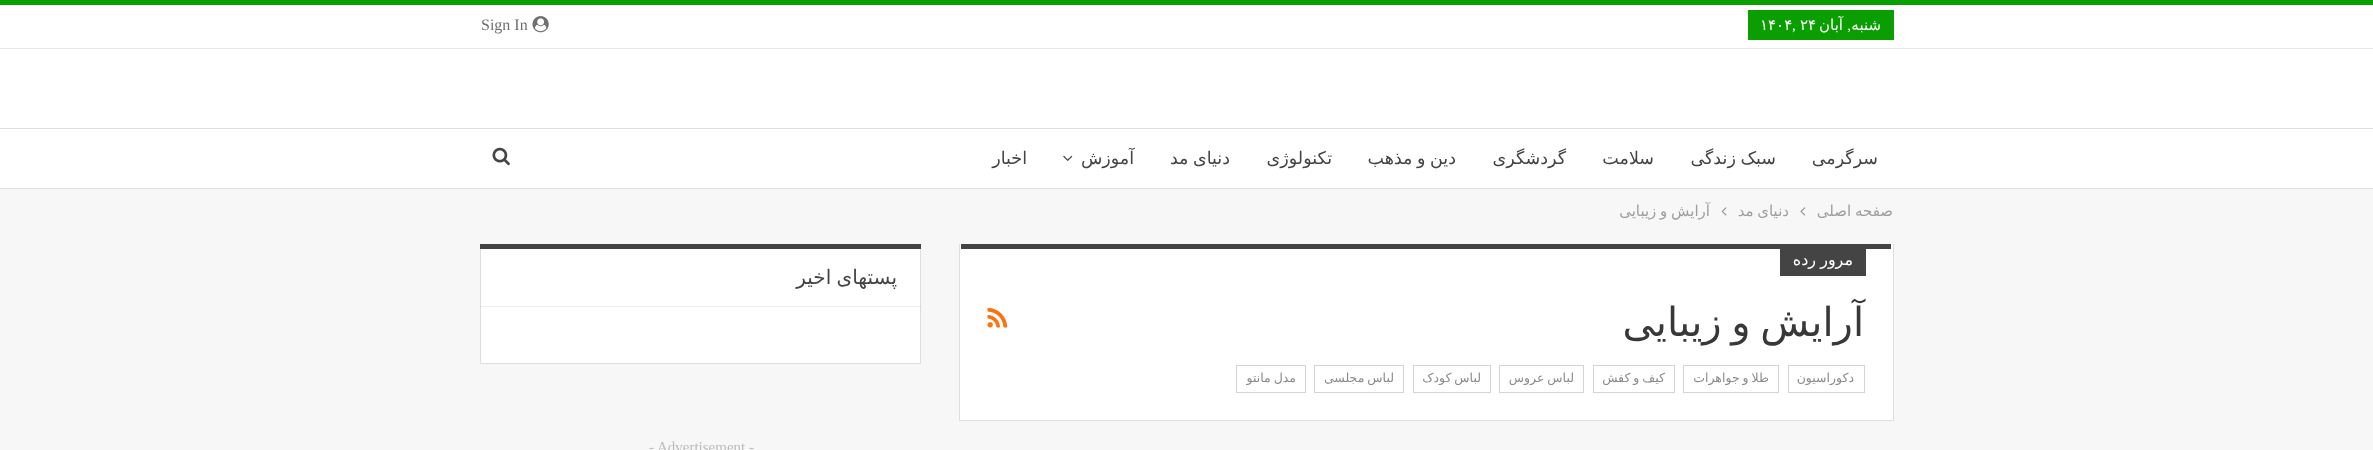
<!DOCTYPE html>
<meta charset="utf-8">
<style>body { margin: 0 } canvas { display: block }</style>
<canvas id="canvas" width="2373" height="450"></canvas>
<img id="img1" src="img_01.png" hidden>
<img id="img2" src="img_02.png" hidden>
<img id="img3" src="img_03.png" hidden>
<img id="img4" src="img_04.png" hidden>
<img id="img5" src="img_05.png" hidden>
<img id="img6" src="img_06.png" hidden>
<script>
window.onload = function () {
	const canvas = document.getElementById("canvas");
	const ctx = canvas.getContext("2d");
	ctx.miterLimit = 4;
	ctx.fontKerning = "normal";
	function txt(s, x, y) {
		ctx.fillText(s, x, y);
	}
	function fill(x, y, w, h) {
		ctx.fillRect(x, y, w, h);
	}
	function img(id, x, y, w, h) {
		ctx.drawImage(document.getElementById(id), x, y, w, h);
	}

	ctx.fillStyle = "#F7F7F7";
	fill(0, 0, 2373, 450);
	ctx.fillStyle = "#0A9E01";
	fill(0, 0, 2373, 5);
	ctx.fillStyle = "#FFFFFF";
	fill(0, 5, 2373, 183);
	ctx.fillStyle = "#E6E6E6";
	fill(0, 48, 2373, 1);
	ctx.fillStyle = "#0A9E01";
	fill(1748, 10, 146, 30);
	img("img1", 532, 16, 17, 17);
	ctx.fillStyle = "#DEDEDE";
	fill(0, 128, 2373, 1);
	fill(0, 188, 2373, 1);
	img("img2", 1063, 155, 10, 6);
	img("img3", 492, 147, 18, 19);
	img("img4", 1800, 207, 6, 9);
	img("img5", 1721, 207, 6, 9);
	ctx.fillStyle = "#FFFFFF";
	fill(960, 244, 933, 176);
	ctx.fillStyle = "#DEDEDE";
	fill(1893, 244, 1, 177);
	fill(959, 420, 935, 1);
	fill(959, 244, 1, 177);
	ctx.fillStyle = "#444444";
	fill(961, 244, 930, 5);
	fill(1780, 249, 86, 27);
	img("img6", 987, 307, 21, 21);
	ctx.strokeStyle = "#D4D4D4";
	ctx.strokeRect(1788.5, 365.5, 76, 27);
	ctx.strokeRect(1683.5, 365.5, 95, 27);
	ctx.strokeRect(1593.5, 365.5, 81, 27);
	ctx.strokeRect(1499.5, 365.5, 84, 27);
	ctx.strokeRect(1413.5, 365.5, 77, 27);
	ctx.strokeRect(1314.5, 365.5, 89, 27);
	ctx.strokeRect(1236.5, 365.5, 69, 27);
	ctx.fillStyle = "#FFFFFF";
	fill(481, 249, 439, 114);
	ctx.strokeStyle = "#DEDEDE";
	ctx.strokeRect(480.5, 244.5, 440, 119);
	ctx.fillStyle = "#444444";
	fill(480, 244, 441, 5);
	ctx.fillStyle = "rgba(0, 0, 0, 0.07)";
	fill(480, 306, 441, 1);
	ctx.direction = "rtl";
	ctx.font = "15px DejaVu Sans";
	ctx.fillStyle = "#FFFFFF";
	txt("شنبه", 1881, 30);
	ctx.font = "15px Liberation Serif";
	txt(",", 1851, 30);
	ctx.font = "15px DejaVu Sans";
	txt("آبان", 1843, 30);
	ctx.direction = "ltr";
	txt("۲۴", 1800, 30);
	ctx.font = "15px Liberation Serif";
	txt(",", 1792, 30);
	ctx.font = "15px DejaVu Sans";
	txt("۱۴۰۴", 1760, 30);
	ctx.font = "16px Liberation Serif";
	ctx.fillStyle = "#707070";
	txt("Sign In", 481, 30);
	ctx.direction = "rtl";
	ctx.font = "17.5px DejaVu Sans";
	ctx.fillStyle = "#444444";
	txt("سرگرمی", 1878, 164);
	ctx.wordSpacing = "-1px";
	txt("سبک زندگی", 1776, 164);
	ctx.wordSpacing = "0px";
	txt("سلامت", 1654, 164);
	txt("گردشگری", 1566, 164);
	ctx.wordSpacing = "-1px";
	txt("دین و مذهب", 1456, 164);
	ctx.wordSpacing = "0px";
	txt("تکنولوژی", 1332, 164);
	ctx.wordSpacing = "-1px";
	txt("دنیای مد", 1230, 164);
	ctx.wordSpacing = "0px";
	txt("آموزش", 1134, 164);
	txt("اخبار", 1027, 164);
	ctx.wordSpacing = "-1px";
	ctx.font = "15px DejaVu Sans";
	ctx.fillStyle = "#9E9E9E";
	txt("صفحه اصلی", 1893, 216);
	txt("دنیای مد", 1789, 216);
	txt("آرایش و زیبایی", 1710, 216);
	ctx.font = "16px DejaVu Sans";
	ctx.fillStyle = "#FFFFFF";
	txt("مرور رده", 1853, 265);
	ctx.wordSpacing = "-3px";
	ctx.font = "40px DejaVu Sans";
	ctx.fillStyle = "#383838";
	txt("آرایش و زیبایی", 1864, 336);
	ctx.wordSpacing = "0px";
	ctx.font = "12.5px DejaVu Sans";
	ctx.fillStyle = "#8B8B8B";
	txt("دکوراسیون", 1854, 382);
	ctx.wordSpacing = "-1px";
	txt("طلا و جواهرات", 1769, 382);
	txt("کیف و کفش", 1665, 382);
	txt("لباس عروس", 1574, 382);
	txt("لباس کودک", 1481, 382);
	txt("لباس مجلسی", 1394, 382);
	txt("مدل مانتو", 1296, 382);
	ctx.font = "20px DejaVu Sans";
	ctx.fillStyle = "#444444";
	txt("پستهای اخیر", 897, 284);
	ctx.wordSpacing = "0px";
	ctx.direction = "ltr";
	ctx.font = "15px Liberation Serif";
	ctx.fillStyle = "#BBBBBB";
	txt("- Advertisement -", 649, 452);
};
</script>
